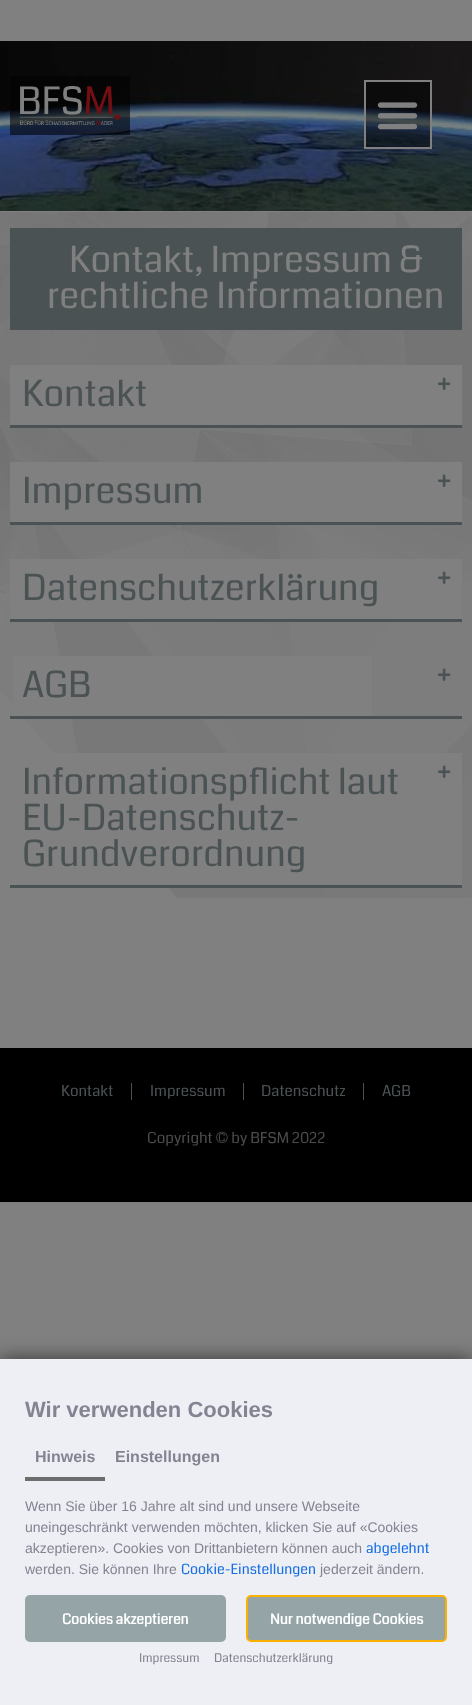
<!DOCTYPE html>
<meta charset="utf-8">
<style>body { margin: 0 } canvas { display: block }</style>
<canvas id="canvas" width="472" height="1705"></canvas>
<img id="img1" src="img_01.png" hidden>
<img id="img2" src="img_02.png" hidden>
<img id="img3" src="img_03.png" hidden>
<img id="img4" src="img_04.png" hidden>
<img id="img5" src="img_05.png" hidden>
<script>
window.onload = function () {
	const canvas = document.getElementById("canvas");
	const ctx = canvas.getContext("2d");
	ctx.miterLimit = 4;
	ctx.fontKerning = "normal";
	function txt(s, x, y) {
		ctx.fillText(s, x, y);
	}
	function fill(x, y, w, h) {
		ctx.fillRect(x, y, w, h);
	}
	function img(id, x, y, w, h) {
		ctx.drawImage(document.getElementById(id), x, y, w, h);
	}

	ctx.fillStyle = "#808080";
	fill(0, 0, 472, 1705);
	img("img1", 0, 41, 472, 170);
	ctx.fillStyle = "rgba(1, 1, 1, 0.58)";
	fill(10, 76, 120, 59);
	img("img2", 20, 86, 100, 39);
	ctx.fillStyle = "rgba(0, 0, 0, 0.42)";
	ctx.beginPath();
	ctx.rect(365, 81, 66, 67);
	ctx.fill();
	ctx.strokeStyle = "#808080";
	ctx.lineWidth = 2;
	ctx.stroke();
	img("img3", 377, 102, 41, 28);
	img("img4", 0, 212, 472, 686);
	ctx.fillStyle = "#4B5254";
	fill(10, 228, 452, 102);
	ctx.fillStyle = "#808080";
	fill(10, 365, 452, 60);
	ctx.fillStyle = "#4B5254";
	fill(10, 425, 452, 3);
	img("img5", 438, 377, 13, 13);
	ctx.fillStyle = "#808080";
	fill(10, 462, 452, 60);
	ctx.fillStyle = "#4B5254";
	fill(10, 522, 452, 3);
	img("img5", 438, 474, 13, 13);
	ctx.fillStyle = "#808080";
	fill(10, 559, 452, 60);
	ctx.fillStyle = "#4B5254";
	fill(10, 619, 452, 3);
	img("img5", 438, 571, 13, 13);
	ctx.fillStyle = "#808080";
	fill(13, 656, 359, 60);
	ctx.fillStyle = "#4B5254";
	fill(10, 716, 452, 3);
	img("img5", 438, 668, 13, 13);
	ctx.fillStyle = "#808080";
	fill(55, 753, 407, 132);
	ctx.fillStyle = "#4B5254";
	fill(10, 885, 452, 3);
	img("img5", 438, 765, 13, 13);
	ctx.fillStyle = "#000000";
	fill(0, 1048, 472, 154);
	ctx.fillStyle = "#4B5254";
	fill(131, 1083, 1, 17);
	fill(243, 1083, 1, 17);
	fill(363, 1083, 1, 17);
	ctx.fillStyle = "rgba(0, 0, 0, 0.6)";
	ctx.filter = "blur(10px)";
	ctx.beginPath();
	ctx.rect(0, 1359, 472, 346);
	ctx.fill();
	ctx.filter = "none";
	ctx.fillStyle = "#EDEFF5";
	fill(0, 1359, 472, 346);
	ctx.fillStyle = "#6D6D6D";
	fill(25, 1477, 80, 4);
	ctx.fillStyle = "#95A4A7";
	ctx.beginPath();
	ctx.roundRect(26, 1596, 199, 45, 4);
	ctx.fill();
	ctx.strokeStyle = "#95A4A7";
	ctx.stroke();
	ctx.beginPath();
	ctx.roundRect(247, 1596, 199, 45, 4);
	ctx.fill();
	ctx.strokeStyle = "#FCB100";
	ctx.stroke();
	ctx.font = "36px Coda";
	ctx.fillStyle = "#808080";
	txt("Kontakt, Impressum &", 69, 272);
	txt("rechtliche Informationen", 47, 308);
	ctx.fillStyle = "#4B5254";
	txt("Kontakt", 22, 406);
	txt("Impressum", 22, 503);
	txt("Datenschutzerklärung", 22, 600);
	txt("AGB", 22, 697);
	txt("Informationspflicht laut", 22, 794);
	txt("EU-Datenschutz-", 22, 830);
	txt("Grundverordnung", 22, 866);
	ctx.font = "15px Coda";
	txt("Kontakt", 61, 1096);
	txt("Impressum", 150, 1096);
	txt("Datenschutz", 261, 1096);
	txt("AGB", 382, 1096);
	ctx.fillStyle = "#4B4B4B";
	txt("Copyright © by BFSM 2022", 147, 1143);
	ctx.font = "bold 22px Liberation Sans";
	ctx.fillStyle = "#838391";
	txt("Wir verwenden Cookies", 25, 1417);
	ctx.font = "bold 16px Liberation Sans";
	txt("Hinweis", 35, 1462);
	txt("Einstellungen", 115, 1462);
	ctx.font = "14px Liberation Sans";
	txt("Wenn Sie über 16 Jahre alt sind und unsere Webseite", 25, 1511);
	txt("uneingeschränkt verwenden möchten, klicken Sie auf «Cookies", 25, 1532);
	txt("akzeptieren». Cookies von Drittanbietern können auch", 25, 1553);
	ctx.font = "14px Coda";
	ctx.fillStyle = "#166FE3";
	txt("abgelehnt", 366, 1553);
	ctx.font = "14px Liberation Sans";
	ctx.fillStyle = "#838391";
	txt("werden. Sie können Ihre", 25, 1574);
	ctx.font = "14px Coda";
	ctx.fillStyle = "#166FE3";
	txt("Cookie-Einstellungen", 181, 1574);
	ctx.font = "14px Liberation Sans";
	ctx.fillStyle = "#838391";
	txt("jederzeit ändern.", 320, 1574);
	ctx.font = "bold 14px Coda";
	ctx.fillStyle = "#FFFFFF";
	txt("Cookies akzeptieren", 62, 1624);
	txt("Nur notwendige Cookies", 270, 1624);
	ctx.font = "12px Coda";
	ctx.fillStyle = "#838391";
	txt("Impressum", 139, 1662);
	txt("Datenschutzerklärung", 214, 1662);
};
</script>
